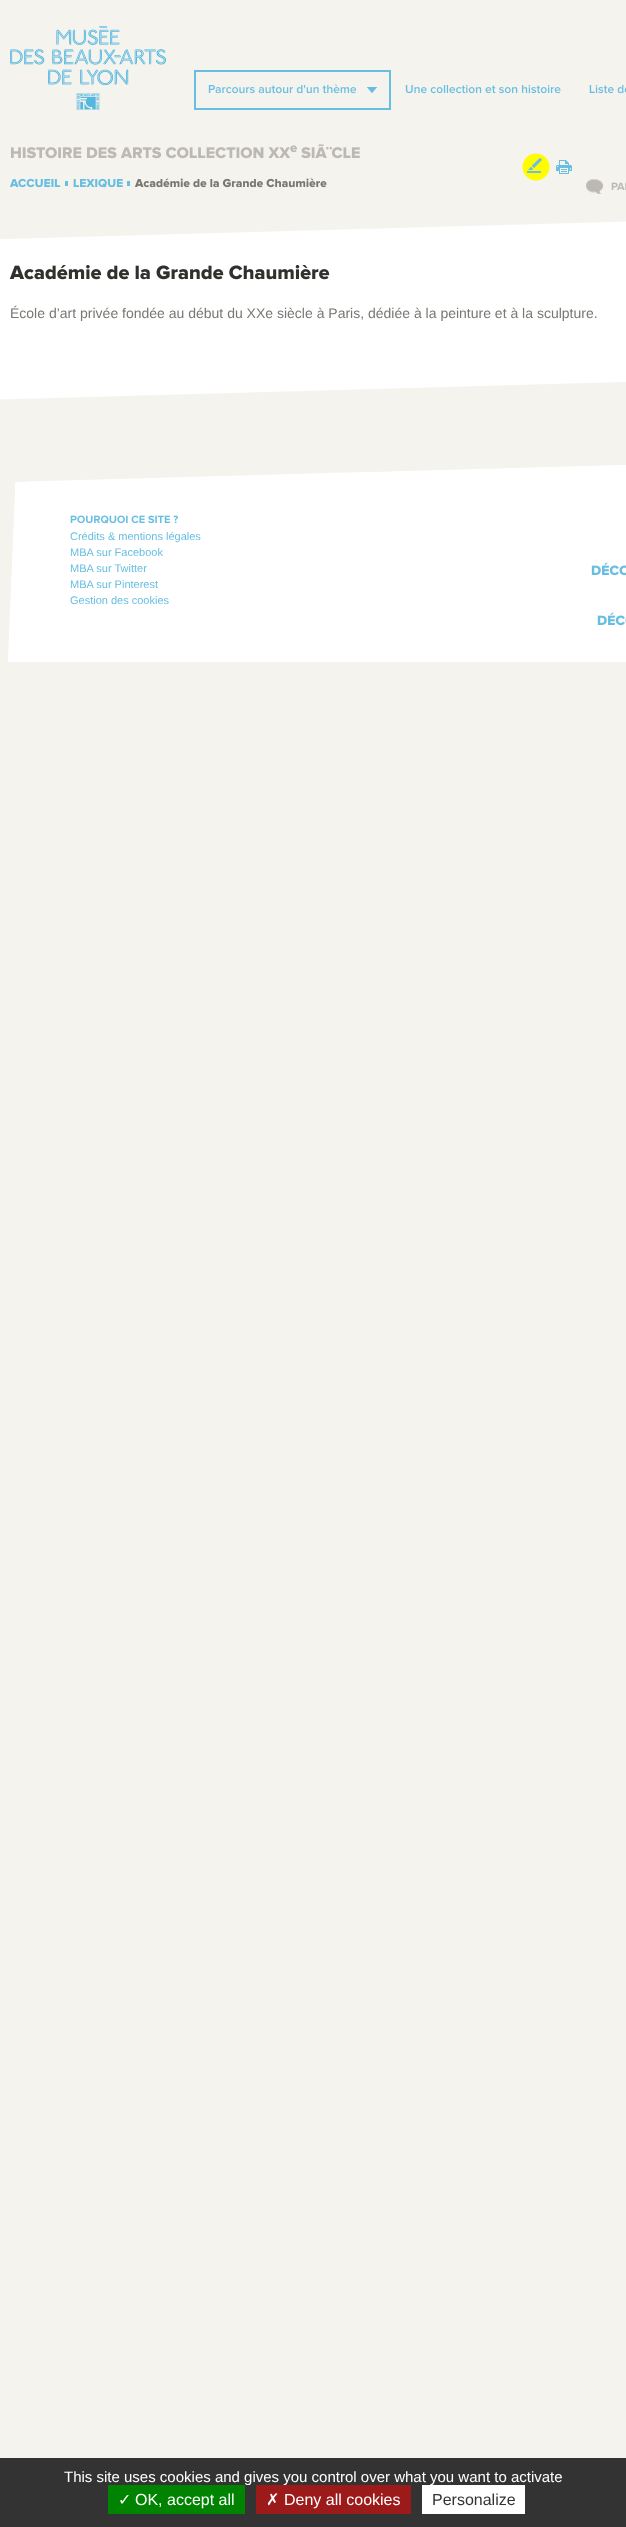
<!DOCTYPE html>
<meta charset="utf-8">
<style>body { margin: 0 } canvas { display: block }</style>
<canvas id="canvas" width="626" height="2527"></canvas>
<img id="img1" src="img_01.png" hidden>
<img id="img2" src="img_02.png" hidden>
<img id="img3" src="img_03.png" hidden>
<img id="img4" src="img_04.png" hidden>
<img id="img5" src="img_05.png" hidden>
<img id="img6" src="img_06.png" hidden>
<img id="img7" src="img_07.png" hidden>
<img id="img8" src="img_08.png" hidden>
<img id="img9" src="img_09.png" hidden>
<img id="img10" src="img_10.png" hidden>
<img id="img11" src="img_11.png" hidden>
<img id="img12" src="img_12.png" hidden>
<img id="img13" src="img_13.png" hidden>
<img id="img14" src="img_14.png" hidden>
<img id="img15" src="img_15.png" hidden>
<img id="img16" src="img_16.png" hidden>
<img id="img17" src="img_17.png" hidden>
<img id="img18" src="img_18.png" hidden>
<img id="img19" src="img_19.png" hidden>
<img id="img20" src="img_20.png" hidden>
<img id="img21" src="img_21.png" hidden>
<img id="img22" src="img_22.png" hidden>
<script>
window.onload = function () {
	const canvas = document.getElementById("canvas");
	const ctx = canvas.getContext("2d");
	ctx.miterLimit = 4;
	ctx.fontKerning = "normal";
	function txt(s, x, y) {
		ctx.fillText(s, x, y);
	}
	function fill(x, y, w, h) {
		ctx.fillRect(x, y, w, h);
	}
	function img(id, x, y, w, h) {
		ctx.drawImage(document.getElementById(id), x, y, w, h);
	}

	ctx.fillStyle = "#F5F3EE";
	fill(0, 0, 626, 2527);
	img("img1", 10, 26, 156, 84);
	img("img2", 367, 87, 10, 6);
	ctx.strokeStyle = "#68BEE1";
	ctx.lineWidth = 2;
	ctx.strokeRect(195, 71, 195, 38);
	img("img3", 208, 84, 149, 10);
	img("img4", 405, 85, 156, 9);
	img("img5", 589, 85, 37, 9);
	img("img6", 11, 147, 279, 12);
	img("img7", 290, 145, 7, 8);
	img("img8", 301, 144, 59, 15);
	img("img9", 10, 178, 51, 10);
	ctx.fillStyle = "#69BEE1";
	fill(65, 181, 3, 5);
	img("img10", 73, 178, 50, 10);
	fill(127, 181, 3, 5);
	img("img11", 135, 178, 192, 10);
	img("img12", 522, 153, 28, 28);
	img("img13", 556, 160, 16, 14);
	img("img14", 586, 179, 18, 15);
	img("img15", 611, 182, 15, 8);
	img("img16", 0, 221, 626, 42);
	ctx.fillStyle = "#FFFFFF";
	fill(0, 263, 626, 85);
	img("img17", 9, 265, 321, 15);
	img("img18", 0, 348, 626, 52);
	img("img19", 8, 465, 618, 197);
	img("img20", 70, 515, 108, 9);
	img("img21", 591, 562, 35, 14);
	img("img22", 597, 612, 29, 14);
	ctx.fillStyle = "#333333";
	fill(0, 2458, 626, 69);
	ctx.fillStyle = "#FFFFFF";
	fill(422, 2485, 103, 29);
	ctx.font = "14px Liberation Sans";
	ctx.fillStyle = "#797772";
	txt("École d’art privée fondée au début du XXe siècle à Paris, dédiée à la peinture et à la sculpture.", 10, 318);
	ctx.font = "11px Liberation Sans";
	ctx.fillStyle = "#68BEE1";
	txt("Crédits & mentions légales", 70, 540);
	txt("MBA sur Facebook", 70, 556);
	txt("MBA sur Twitter", 70, 572);
	txt("MBA sur Pinterest", 70, 588);
	txt("Gestion des cookies", 70, 604);
	ctx.font = "15px Liberation Sans";
	ctx.fillStyle = "#FFFFFF";
	txt("This site uses cookies and gives you control over what you want to activate", 64, 2482);
	ctx.fillStyle = "#008300";
	fill(108, 2485, 137, 29);
	ctx.font = "16px DejaVu Sans";
	ctx.fillStyle = "#FFFFFF";
	txt("✓", 118, 2505);
	ctx.font = "16px Liberation Sans";
	txt("OK, accept all", 135, 2505);
	ctx.fillStyle = "#9C1A1A";
	fill(256, 2485, 155, 29);
	ctx.font = "16px DejaVu Sans";
	ctx.fillStyle = "#FFFFFF";
	txt("✗", 266, 2505);
	ctx.font = "16px Liberation Sans";
	txt("Deny all cookies", 284, 2505);
	ctx.fillStyle = "#333333";
	txt("Personalize", 432, 2505);
};
</script>
